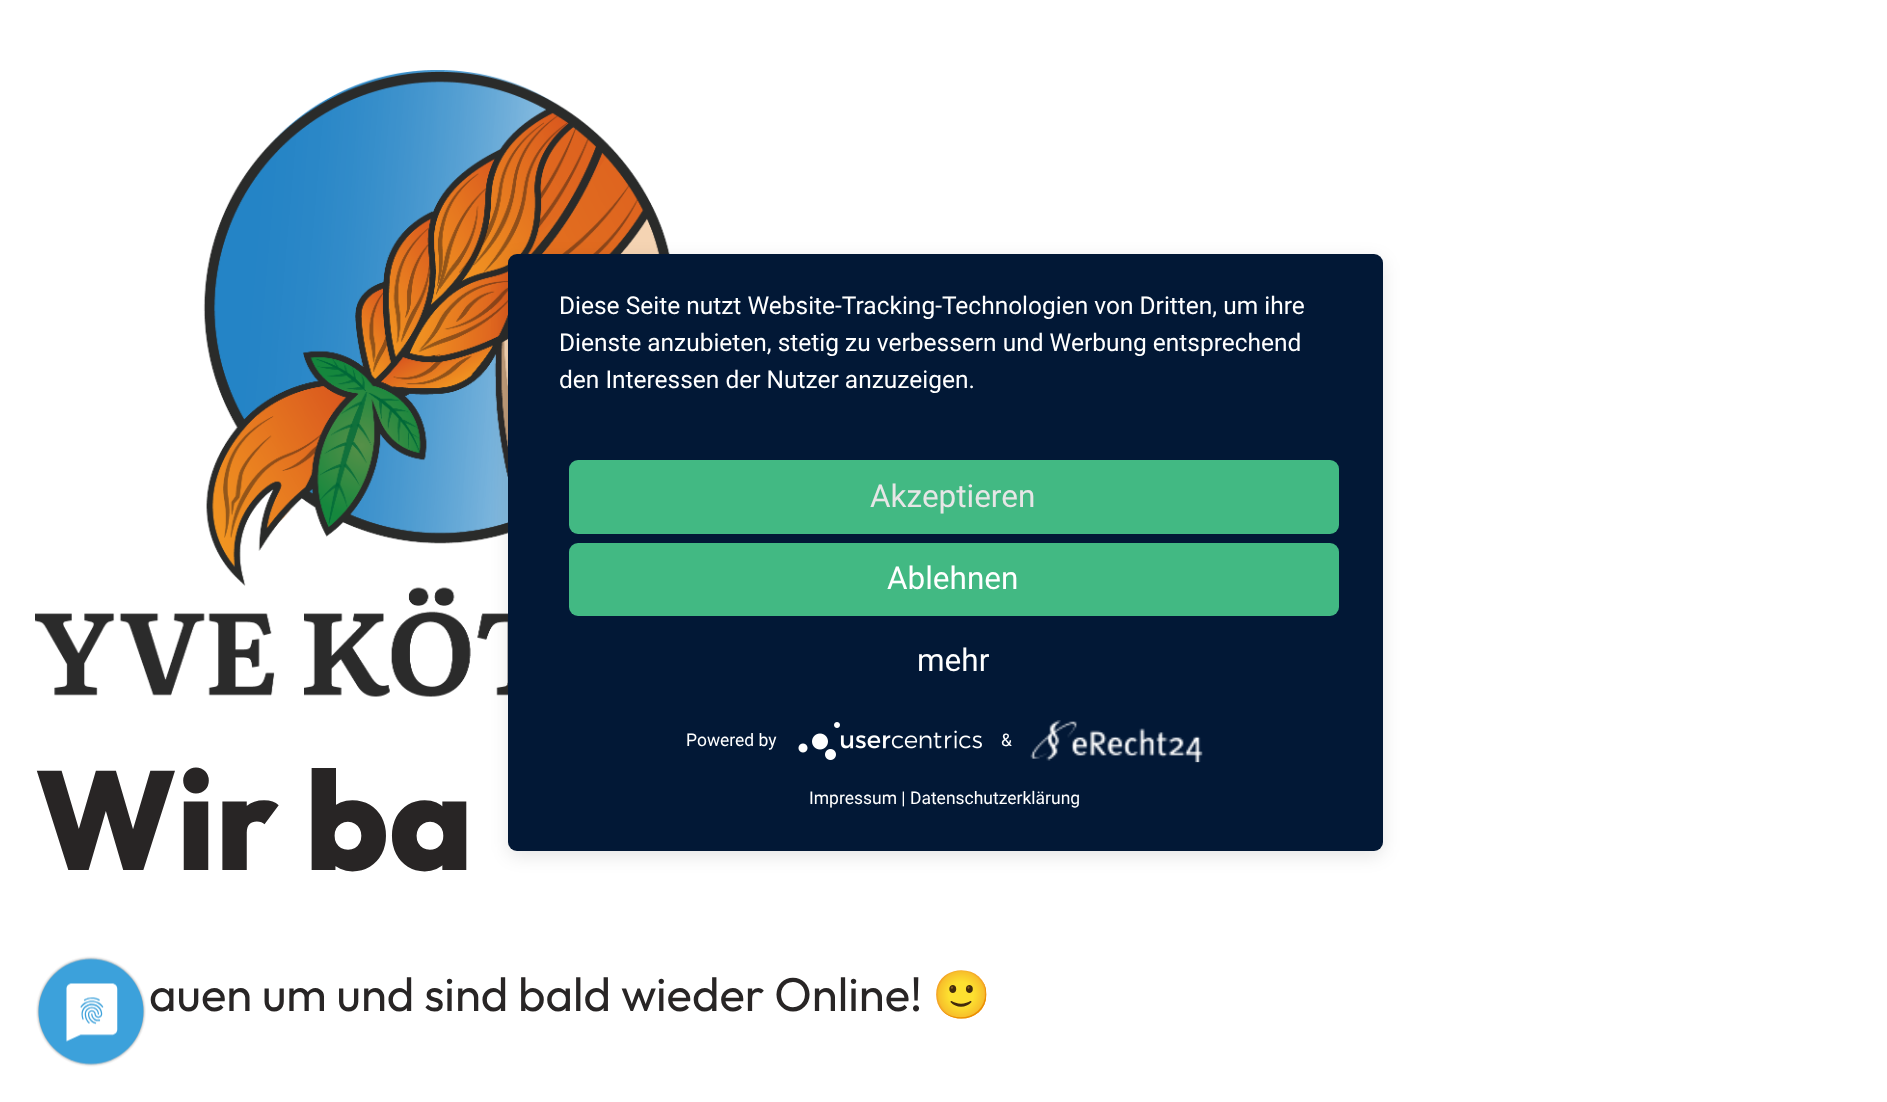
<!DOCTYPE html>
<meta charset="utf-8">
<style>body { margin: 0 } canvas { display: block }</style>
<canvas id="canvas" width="1887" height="1102"></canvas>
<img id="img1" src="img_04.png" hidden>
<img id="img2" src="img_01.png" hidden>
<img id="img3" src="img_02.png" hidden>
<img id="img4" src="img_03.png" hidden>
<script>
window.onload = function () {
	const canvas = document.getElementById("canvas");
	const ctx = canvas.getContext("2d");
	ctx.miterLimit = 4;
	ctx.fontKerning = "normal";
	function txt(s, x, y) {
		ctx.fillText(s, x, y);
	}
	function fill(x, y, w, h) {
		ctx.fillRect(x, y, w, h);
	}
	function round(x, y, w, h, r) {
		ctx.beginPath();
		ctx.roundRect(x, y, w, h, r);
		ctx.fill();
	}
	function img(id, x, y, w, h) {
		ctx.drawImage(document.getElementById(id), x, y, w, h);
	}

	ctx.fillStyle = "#FFFFFF";
	fill(0, 0, 1887, 1102);
	img("img1", 35, 70, 635, 627);
	ctx.fillStyle = "rgba(0, 0, 0, 0.1)";
	ctx.filter = "blur(9px)";
	ctx.beginPath();
	ctx.roundRect(508, 259, 875, 597, 9);
	ctx.fill();
	ctx.filter = "none";
	ctx.save();
	ctx.beginPath();
	ctx.roundRect(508, 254, 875, 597, 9);
	ctx.clip();
	ctx.fillStyle = "rgba(0, 0, 0, 0.3)";
	ctx.filter = "blur(31.5px)";
	ctx.beginPath();
	ctx.rect(508, 264, 875, 597);
	ctx.fill();
	ctx.filter = "none";
	ctx.restore();
	ctx.fillStyle = "#021836";
	round(508, 254, 875, 597, 9);
	ctx.fillStyle = "#42B983";
	round(569, 460, 770, 74, 9);
	round(569, 543, 770, 73, 9);
	img("img2", 798, 722, 184, 38);
	img("img3", 1030, 720, 173, 43);
	img("img4", 36, 956, 110, 111);
	ctx.font = "24.5px Roboto";
	ctx.fillStyle = "#FFFFFF";
	txt("Diese Seite nutzt Website-Tracking-Technologien von Dritten, um ihre", 559, 314);
	txt("Dienste anzubieten, stetig zu verbessern und Werbung entsprechend", 559, 351);
	txt("den Interessen der Nutzer anzuzeigen.", 559, 388);
	ctx.font = "31.5px Roboto";
	ctx.fillStyle = "#E6E6E6";
	txt("Akzeptieren", 870, 507);
	ctx.fillStyle = "#FFFFFF";
	txt("Ablehnen", 887, 589);
	txt("mehr", 917, 671);
	ctx.font = "17.5px Roboto";
	txt("Powered by", 686, 746);
	txt("&", 1001, 746);
	txt("Impressum | Datenschutzerklärung", 809, 804);
	ctx.font = "800 140px Outfit";
	ctx.fillStyle = "#282525";
	txt("Wir ba", 35, 870);
	ctx.font = "47.25px Outfit";
	txt("auen um und sind bald wieder Online!", 149, 1011);
	ctx.font = "47.25px Noto Color Emoji";
	txt("🙂", 932, 1011);
};
</script>
